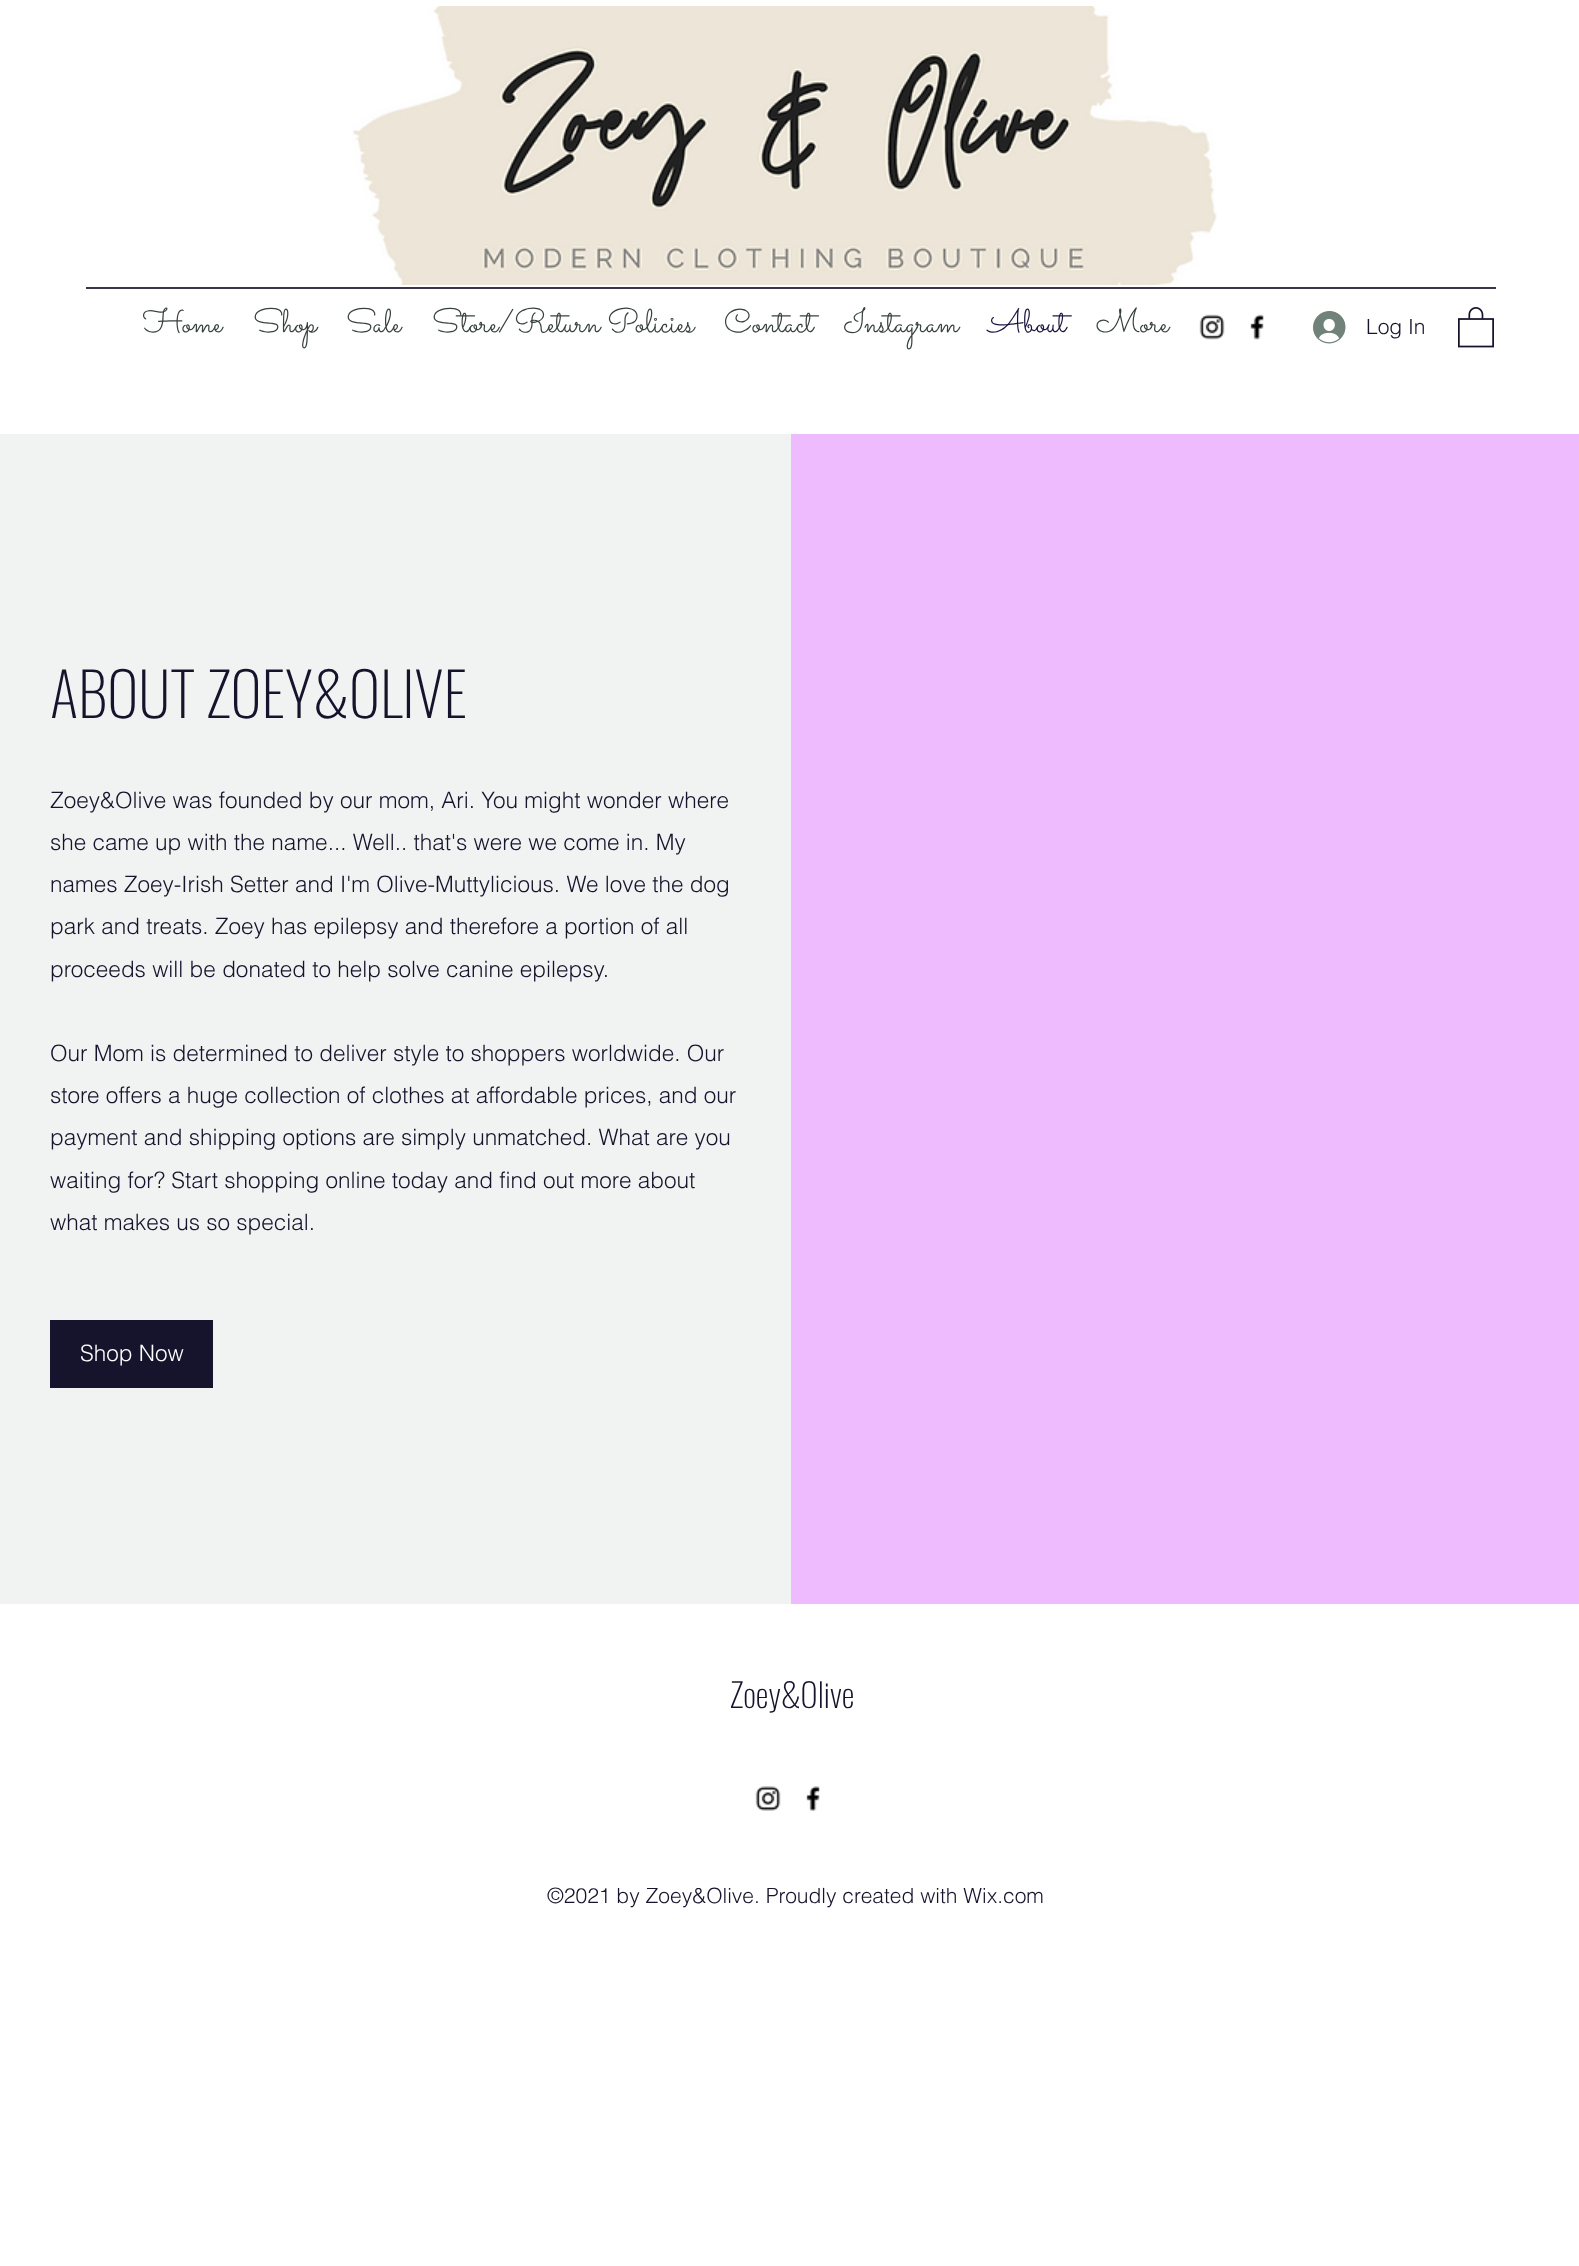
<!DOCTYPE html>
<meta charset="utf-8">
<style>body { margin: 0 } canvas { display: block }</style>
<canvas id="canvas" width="1579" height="2266"></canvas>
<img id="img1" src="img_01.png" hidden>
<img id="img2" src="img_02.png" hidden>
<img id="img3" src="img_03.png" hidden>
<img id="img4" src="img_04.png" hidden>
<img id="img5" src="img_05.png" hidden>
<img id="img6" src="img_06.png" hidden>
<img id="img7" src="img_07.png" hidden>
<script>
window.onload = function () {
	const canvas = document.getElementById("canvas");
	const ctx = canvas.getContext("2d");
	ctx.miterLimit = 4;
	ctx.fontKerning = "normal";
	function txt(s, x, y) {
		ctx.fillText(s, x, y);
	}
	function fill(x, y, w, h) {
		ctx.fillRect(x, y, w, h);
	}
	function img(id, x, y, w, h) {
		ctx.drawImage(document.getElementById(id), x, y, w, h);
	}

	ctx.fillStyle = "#FFFFFF";
	fill(0, 0, 1579, 2266);
	img("img1", 352, 6, 865, 279);
	ctx.fillStyle = "#39364C";
	fill(86, 287, 1410, 2);
	img("img2", 1199, 314, 26, 26);
	img("img3", 1250, 314, 14, 26);
	img("img4", 1313, 311, 33, 33);
	img("img5", 1458, 307, 36, 41);
	ctx.fillStyle = "#F1F3F2";
	fill(0, 434, 791, 1170);
	ctx.fillStyle = "#16132C";
	fill(50, 1320, 163, 68);
	ctx.fillStyle = "#EFBBFF";
	fill(791, 434, 788, 1170);
	img("img6", 755, 1786, 26, 25);
	img("img7", 806, 1786, 14, 25);
	ctx.font = "33px Sacramento";
	ctx.fillStyle = "#38413D";
	txt("Home", 143, 332);
	txt("Shop", 253, 332);
	txt("Sale", 346, 332);
	txt("Store/Return Policies", 432, 332);
	txt("Contact", 724, 332);
	txt("Instagram", 844, 332);
	ctx.fillStyle = "#18133E";
	txt("About", 988, 332);
	ctx.fillStyle = "#38413D";
	txt("More", 1096, 332);
	ctx.font = "300 21px helvetica";
	ctx.fillStyle = "#16132C";
	txt("Log In", 1366, 334);
	ctx.font = "200 60px Oswald";
	txt("ABOUT ZOEY&OLIVE", 50, 718);
	ctx.font = "300 22.5px helvetica";
	txt("Zoey&Olive was founded by our mom, Ari. You might wonder where", 50, 808);
	txt("she came up with the name... Well.. that's were we come in. My", 50, 850);
	txt("names Zoey-Irish Setter and I'm Olive-Muttylicious. We love the dog", 50, 892);
	txt("park and treats. Zoey has epilepsy and therefore a portion of all", 50, 934);
	txt("proceeds will be donated to help solve canine epilepsy.", 50, 977);
	txt("Our Mom is determined to deliver style to shoppers worldwide. Our", 50, 1061);
	txt("store offers a huge collection of clothes at affordable prices, and our", 50, 1103);
	txt("payment and shipping options are simply unmatched. What are you", 50, 1145);
	txt("waiting for? Start shopping online today and find out more about", 50, 1188);
	txt("what makes us so special.", 50, 1230);
	ctx.fillStyle = "#FFFFFF";
	txt("Shop Now", 80, 1361);
	ctx.font = "200 33px Oswald";
	ctx.fillStyle = "#16132C";
	txt("Zoey&Olive", 730, 1708);
	ctx.font = "300 21px helvetica";
	txt("©2021 by Zoey&Olive. Proudly created with Wix.com", 547, 1903);
};
</script>
